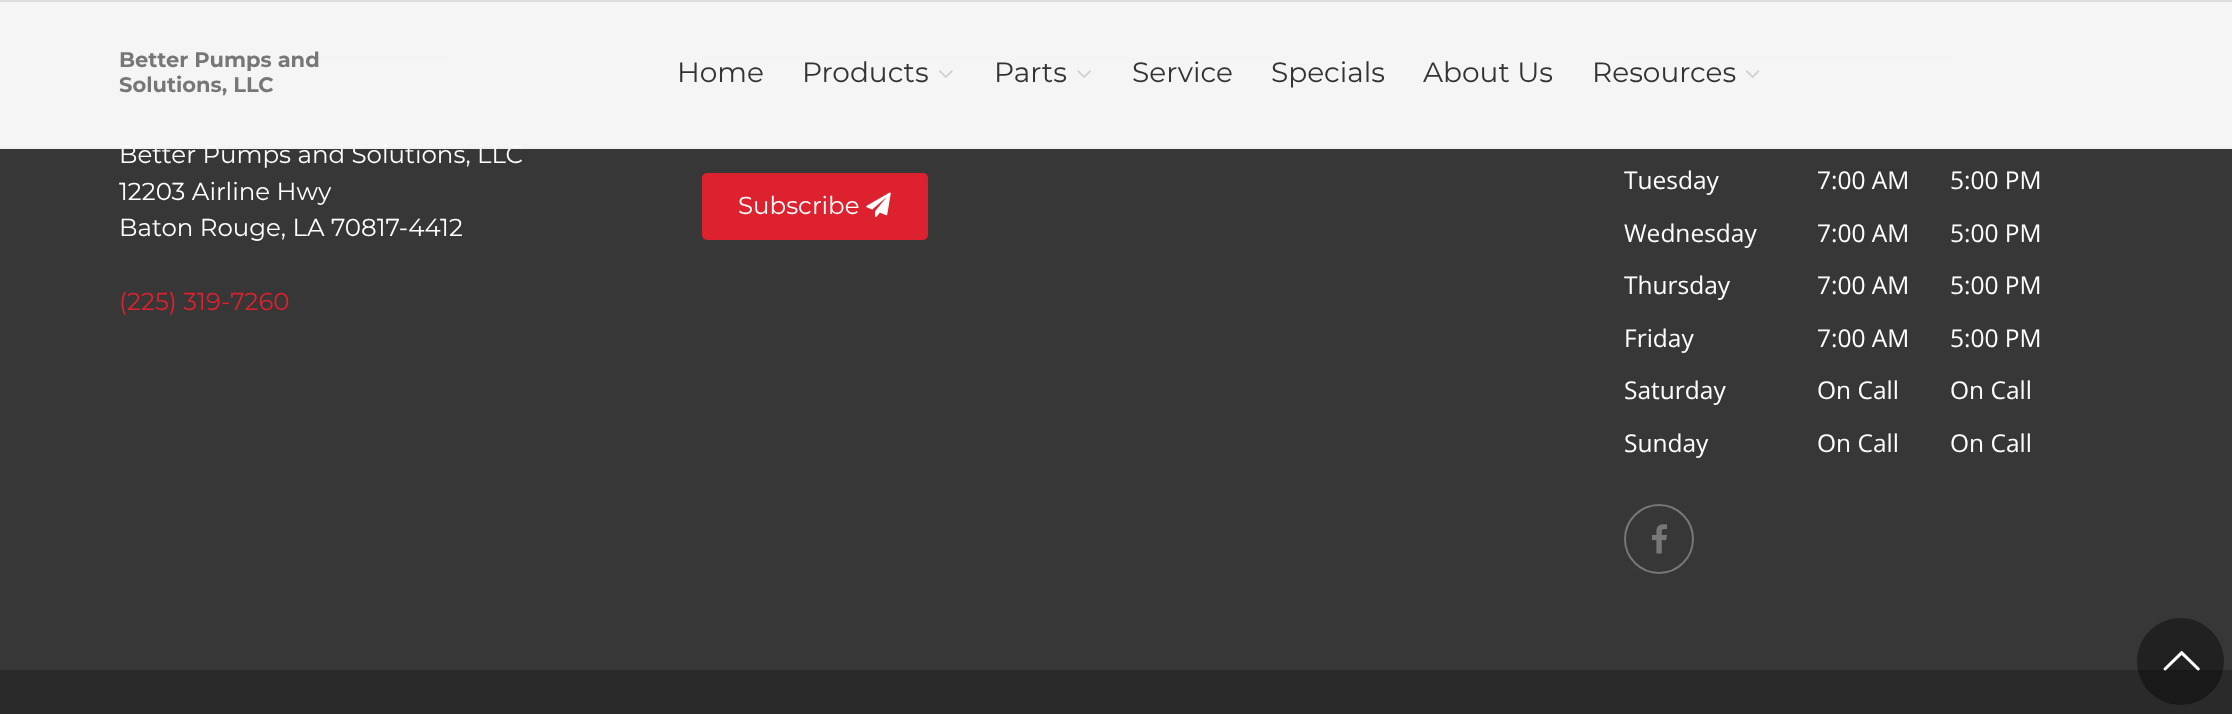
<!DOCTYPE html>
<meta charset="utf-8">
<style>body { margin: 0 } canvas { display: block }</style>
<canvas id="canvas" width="2232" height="714"></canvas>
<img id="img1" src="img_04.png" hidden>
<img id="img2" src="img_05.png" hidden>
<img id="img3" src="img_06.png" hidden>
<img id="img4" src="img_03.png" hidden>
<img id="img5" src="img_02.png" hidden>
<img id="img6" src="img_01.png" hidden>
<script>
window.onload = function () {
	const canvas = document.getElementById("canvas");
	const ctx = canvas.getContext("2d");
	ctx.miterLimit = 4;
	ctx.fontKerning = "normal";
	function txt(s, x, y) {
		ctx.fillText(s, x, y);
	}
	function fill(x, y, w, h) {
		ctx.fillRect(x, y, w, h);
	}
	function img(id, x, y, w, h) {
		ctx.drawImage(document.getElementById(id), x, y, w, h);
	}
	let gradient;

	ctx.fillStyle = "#373737";
	fill(0, 0, 2232, 714);
	ctx.fillStyle = "#DDDDDD";
	fill(0, 0, 2232, 2);
	gradient = ctx.createLinearGradient(119, 59, 579, 59);
	gradient.addColorStop(0, "#2E2E2E");
	gradient.addColorStop(1, "#373737");
	ctx.fillStyle = gradient;
	fill(119, 58, 332, 2);
	gradient = ctx.createLinearGradient(702, 59, 1502, 59);
	gradient.addColorStop(0, "#2E2E2E");
	gradient.addColorStop(1, "#373737");
	ctx.fillStyle = gradient;
	fill(702, 58, 578, 2);
	ctx.fillStyle = "#DE212E";
	ctx.beginPath();
	ctx.roundRect(703, 174, 224, 65, 4);
	ctx.fill();
	ctx.strokeStyle = "#DE212E";
	ctx.lineWidth = 2;
	ctx.stroke();
	img("img1", 866, 192, 25, 25);
	gradient = ctx.createLinearGradient(1624, 59, 2084, 59);
	gradient.addColorStop(0, "#2E2E2E");
	gradient.addColorStop(1, "#373737");
	ctx.fillStyle = gradient;
	fill(1624, 58, 332, 2);
	ctx.beginPath();
	ctx.arc(1659, 539, 34, 0, Math.PI * 2);
	ctx.strokeStyle = "#777777";
	ctx.stroke();
	img("img2", 1651, 524, 17, 30);
	ctx.fillStyle = "#2A2A2A";
	fill(0, 670, 2232, 44);
	ctx.fillStyle = "rgba(0, 0, 0, 0.4)";
	ctx.beginPath();
	ctx.arc(2180.5, 661.5, 43.5, 0, Math.PI * 2);
	ctx.fill();
	img("img3", 2163, 651, 37, 20);
	ctx.font = "24.5px Montserrat";
	ctx.fillStyle = "#FFFFFF";
	txt("Better Pumps and Solutions, LLC", 119, 163);
	ctx.fillStyle = "rgba(255, 255, 255, 0.95)";
	fill(0, 2, 2232, 145);
	img("img4", 1746, 70, 14, 8);
	ctx.font = "28px Montserrat";
	ctx.fillStyle = "#333333";
	txt("Resources", 1592, 82);
	txt("About Us", 1423, 82);
	txt("Specials", 1271, 82);
	txt("Service", 1132, 82);
	img("img5", 1077, 70, 14, 8);
	txt("Parts", 994, 82);
	img("img6", 939, 70, 14, 8);
	txt("Products", 802, 82);
	txt("Home", 677, 82);
	ctx.font = "bold 21px Montserrat";
	ctx.fillStyle = "#777777";
	txt("Solutions, LLC", 119, 92);
	txt("Better Pumps and", 119, 67);
	ctx.fillStyle = "#F1F1F1";
	fill(0, 147, 2232, 2);
	ctx.font = "24.5px Montserrat";
	ctx.fillStyle = "#FFFFFF";
	txt("12203 Airline Hwy", 119, 200);
	txt("Baton Rouge, LA 70817-4412", 119, 236);
	ctx.fillStyle = "#DE212E";
	txt("(225) 319-7260", 119, 310);
	ctx.fillStyle = "#FFFFFF";
	txt("Subscribe", 738, 214);
	ctx.font = "24.5px Open Sans";
	txt("Tuesday", 1624, 189);
	txt("7:00 AM", 1817, 189);
	txt("5:00 PM", 1950, 189);
	txt("Wednesday", 1624, 242);
	txt("7:00 AM", 1817, 242);
	txt("5:00 PM", 1950, 242);
	txt("Thursday", 1624, 294);
	txt("7:00 AM", 1817, 294);
	txt("5:00 PM", 1950, 294);
	txt("Friday", 1624, 347);
	txt("7:00 AM", 1817, 347);
	txt("5:00 PM", 1950, 347);
	txt("Saturday", 1624, 399);
	txt("On Call", 1817, 399);
	txt("On Call", 1950, 399);
	txt("Sunday", 1624, 452);
	txt("On Call", 1817, 452);
	txt("On Call", 1950, 452);
};
</script>
